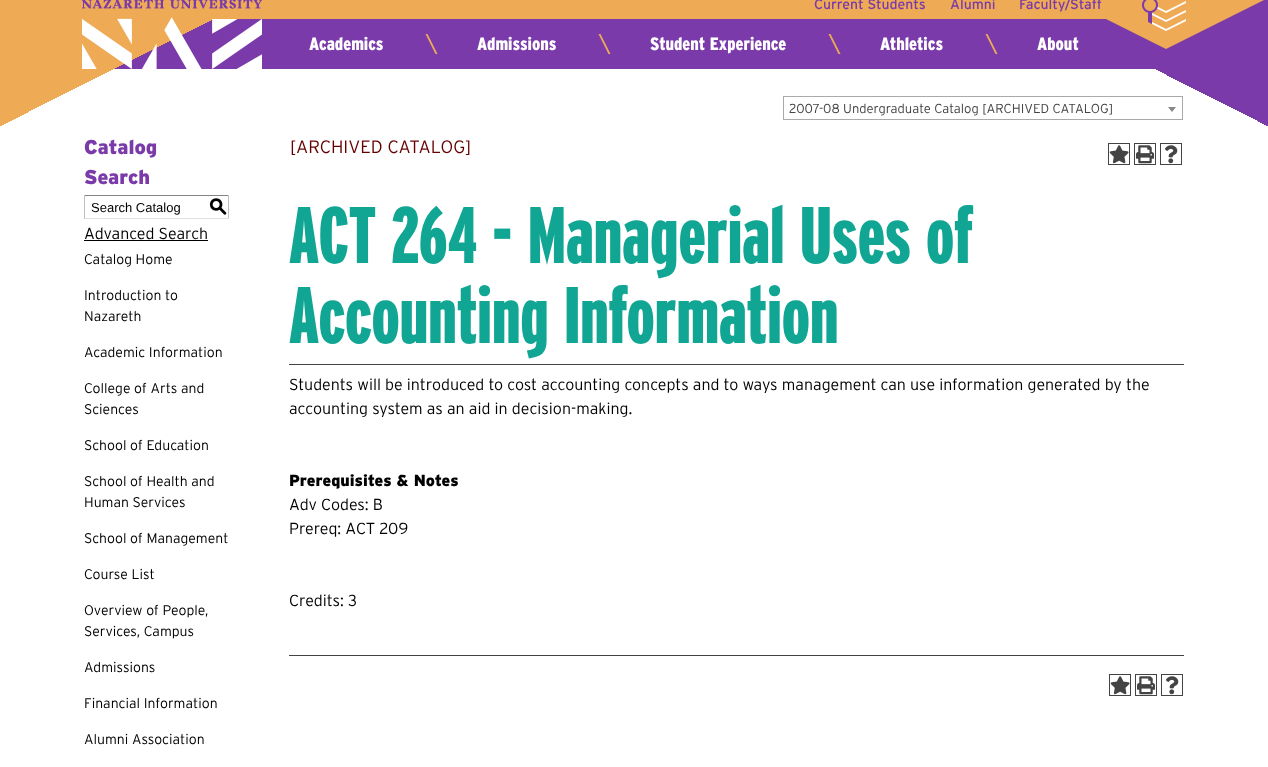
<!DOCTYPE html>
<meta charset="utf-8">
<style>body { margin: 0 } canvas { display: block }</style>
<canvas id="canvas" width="1268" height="767"></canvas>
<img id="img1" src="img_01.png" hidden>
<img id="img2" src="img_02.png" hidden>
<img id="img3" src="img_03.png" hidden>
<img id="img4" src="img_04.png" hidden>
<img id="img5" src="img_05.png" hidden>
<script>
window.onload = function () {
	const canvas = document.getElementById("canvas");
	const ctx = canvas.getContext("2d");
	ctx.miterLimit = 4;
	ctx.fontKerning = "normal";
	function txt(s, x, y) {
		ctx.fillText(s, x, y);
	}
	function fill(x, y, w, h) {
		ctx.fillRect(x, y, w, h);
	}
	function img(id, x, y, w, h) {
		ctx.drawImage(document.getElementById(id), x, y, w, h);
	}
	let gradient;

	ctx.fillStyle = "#FFFFFF";
	fill(0, 0, 1268, 767);
	ctx.fillStyle = "#7A3AAA";
	fill(115, 0, 1153, 69);
	gradient = ctx.createLinearGradient(82, -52, 192, 167);
	gradient.addColorStop(0, "#EEAA55");
	gradient.addColorStop(0.5, "#EEAA55");
	gradient.addColorStop(0.5, "rgba(238, 170, 85, 0)");
	gradient.addColorStop(1, "rgba(0, 0, 0, 0)");
	ctx.fillStyle = gradient;
	fill(0, 0, 213, 126);
	ctx.fillStyle = "#EEAA55";
	ctx.beginPath();
	ctx.moveTo(1046, -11);
	ctx.lineTo(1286, -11);
	ctx.lineTo(1166, 49);
	ctx.closePath();
	ctx.fill();
	fill(213, 0, 893, 19);
	img("img1", 82, 0, 180, 69);
	img("img2", 1142, 0, 44, 31);
	ctx.beginPath();
	ctx.moveTo(425.5, 34);
	ctx.lineTo(427.5, 34);
	ctx.lineTo(437.5, 54);
	ctx.lineTo(435.5, 54);
	ctx.closePath();
	ctx.fill();
	ctx.beginPath();
	ctx.moveTo(598.5, 34);
	ctx.lineTo(600.5, 34);
	ctx.lineTo(610.5, 54);
	ctx.lineTo(608.5, 54);
	ctx.closePath();
	ctx.fill();
	ctx.beginPath();
	ctx.moveTo(828.5, 34);
	ctx.lineTo(830.5, 34);
	ctx.lineTo(840.5, 54);
	ctx.lineTo(838.5, 54);
	ctx.closePath();
	ctx.fill();
	ctx.beginPath();
	ctx.moveTo(985.5, 34);
	ctx.lineTo(987.5, 34);
	ctx.lineTo(997.5, 54);
	ctx.lineTo(995.5, 54);
	ctx.closePath();
	ctx.fill();
	ctx.strokeStyle = "#AAAAAA";
	ctx.strokeRect(783.5, 96.5, 399, 23);
	ctx.fillStyle = "#888888";
	ctx.beginPath();
	ctx.moveTo(1168, 107);
	ctx.lineTo(1176, 107);
	ctx.lineTo(1172, 112);
	ctx.closePath();
	ctx.fill();
	gradient = ctx.createLinearGradient(1234, 52, 1188, 143);
	gradient.addColorStop(0, "#7A3AAA");
	gradient.addColorStop(0.5, "#7A3AAA");
	gradient.addColorStop(0.5, "rgba(122, 58, 170, 0)");
	gradient.addColorStop(1, "rgba(0, 0, 0, 0)");
	ctx.fillStyle = gradient;
	fill(1156, 69, 112, 57);
	ctx.fillStyle = "#848484";
	fill(84, 195, 145, 1);
	ctx.fillStyle = "#C1C1C1";
	fill(228, 195, 1, 24);
	ctx.fillStyle = "#E1E1E1";
	fill(84, 218, 145, 1);
	ctx.fillStyle = "#C1C1C1";
	fill(84, 195, 1, 24);
	ctx.fillStyle = "#000000";
	fill(84, 240, 124, 1);
	ctx.strokeStyle = "#444444";
	ctx.strokeRect(1108.5, 143.5, 21, 21);
	img("img3", 1109, 145, 20, 19);
	ctx.strokeRect(1134.5, 143.5, 21, 21);
	img("img4", 1136, 145, 18, 19);
	ctx.strokeRect(1160.5, 143.5, 21, 21);
	img("img5", 1165, 145, 13, 19);
	ctx.fillStyle = "#444444";
	fill(289, 364, 895, 1);
	fill(289, 655, 895, 1);
	ctx.strokeRect(1109.5, 674.5, 21, 21);
	img("img3", 1110, 676, 20, 19);
	ctx.strokeRect(1135.5, 674.5, 21, 21);
	img("img4", 1137, 676, 18, 19);
	ctx.strokeRect(1161.5, 674.5, 21, 21);
	img("img5", 1166, 676, 13, 19);
	ctx.font = "14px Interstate";
	ctx.fillStyle = "#7A3AAA";
	txt("Current Students", 814, 9);
	txt("Alumni", 950, 9);
	txt("Faculty/Staff", 1019, 9);
	ctx.font = "900 18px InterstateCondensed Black";
	ctx.fillStyle = "#FFFFFF";
	txt("Academics", 309, 50);
	txt("Admissions", 477, 50);
	txt("Student Experience", 650, 50);
	txt("Athletics", 880, 50);
	txt("About", 1037, 50);
	ctx.font = "300 13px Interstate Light";
	ctx.fillStyle = "#444444";
	txt("2007-08 Undergraduate Catalog [ARCHIVED CATALOG]", 789, 113);
	ctx.font = "900 20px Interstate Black";
	ctx.fillStyle = "#7A3AAA";
	txt("Catalog", 84, 154);
	txt("Search", 84, 184);
	ctx.font = "13px Liberation Sans";
	ctx.fillStyle = "#000000";
	txt("Search Catalog", 91, 212);
	ctx.font = "500 18px 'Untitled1'";
	txt("S", 209, 212);
	ctx.font = "300 16px Interstate Light";
	txt("Advanced Search", 84, 239);
	ctx.font = "300 14px Interstate Light";
	txt("Catalog Home", 84, 264);
	txt("Introduction to", 84, 300);
	txt("Nazareth", 84, 321);
	txt("Academic Information", 84, 357);
	txt("College of Arts and", 84, 393);
	txt("Sciences", 84, 414);
	txt("School of Education", 84, 450);
	txt("School of Health and", 84, 486);
	txt("Human Services", 84, 507);
	txt("School of Management", 84, 543);
	txt("Course List", 84, 579);
	txt("Overview of People,", 84, 615);
	txt("Services, Campus", 84, 636);
	txt("Admissions", 84, 672);
	txt("Financial Information", 84, 708);
	txt("Alumni Association", 84, 744);
	ctx.font = "300 18px Interstate Light";
	ctx.fillStyle = "#660000";
	txt("[ARCHIVED CATALOG]", 290, 153);
	ctx.font = "900 80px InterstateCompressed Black";
	ctx.fillStyle = "#11A694";
	txt("ACT 264 - Managerial Uses of", 289, 263);
	txt("Accounting Information", 289, 343);
	ctx.font = "300 16px Interstate Light";
	ctx.fillStyle = "#000000";
	txt("Students will be introduced to cost accounting concepts and to ways management can use information generated by the", 289, 390);
	txt("accounting system as an aid in decision-making.", 289, 414);
	ctx.font = "900 16px Interstate Black";
	txt("Prerequisites & Notes", 289, 486);
	ctx.font = "300 16px Interstate Light";
	txt("Adv Codes: B", 289, 510);
	txt("Prereq: ACT 209", 289, 534);
	txt("Credits: 3", 289, 606);
};
</script>
